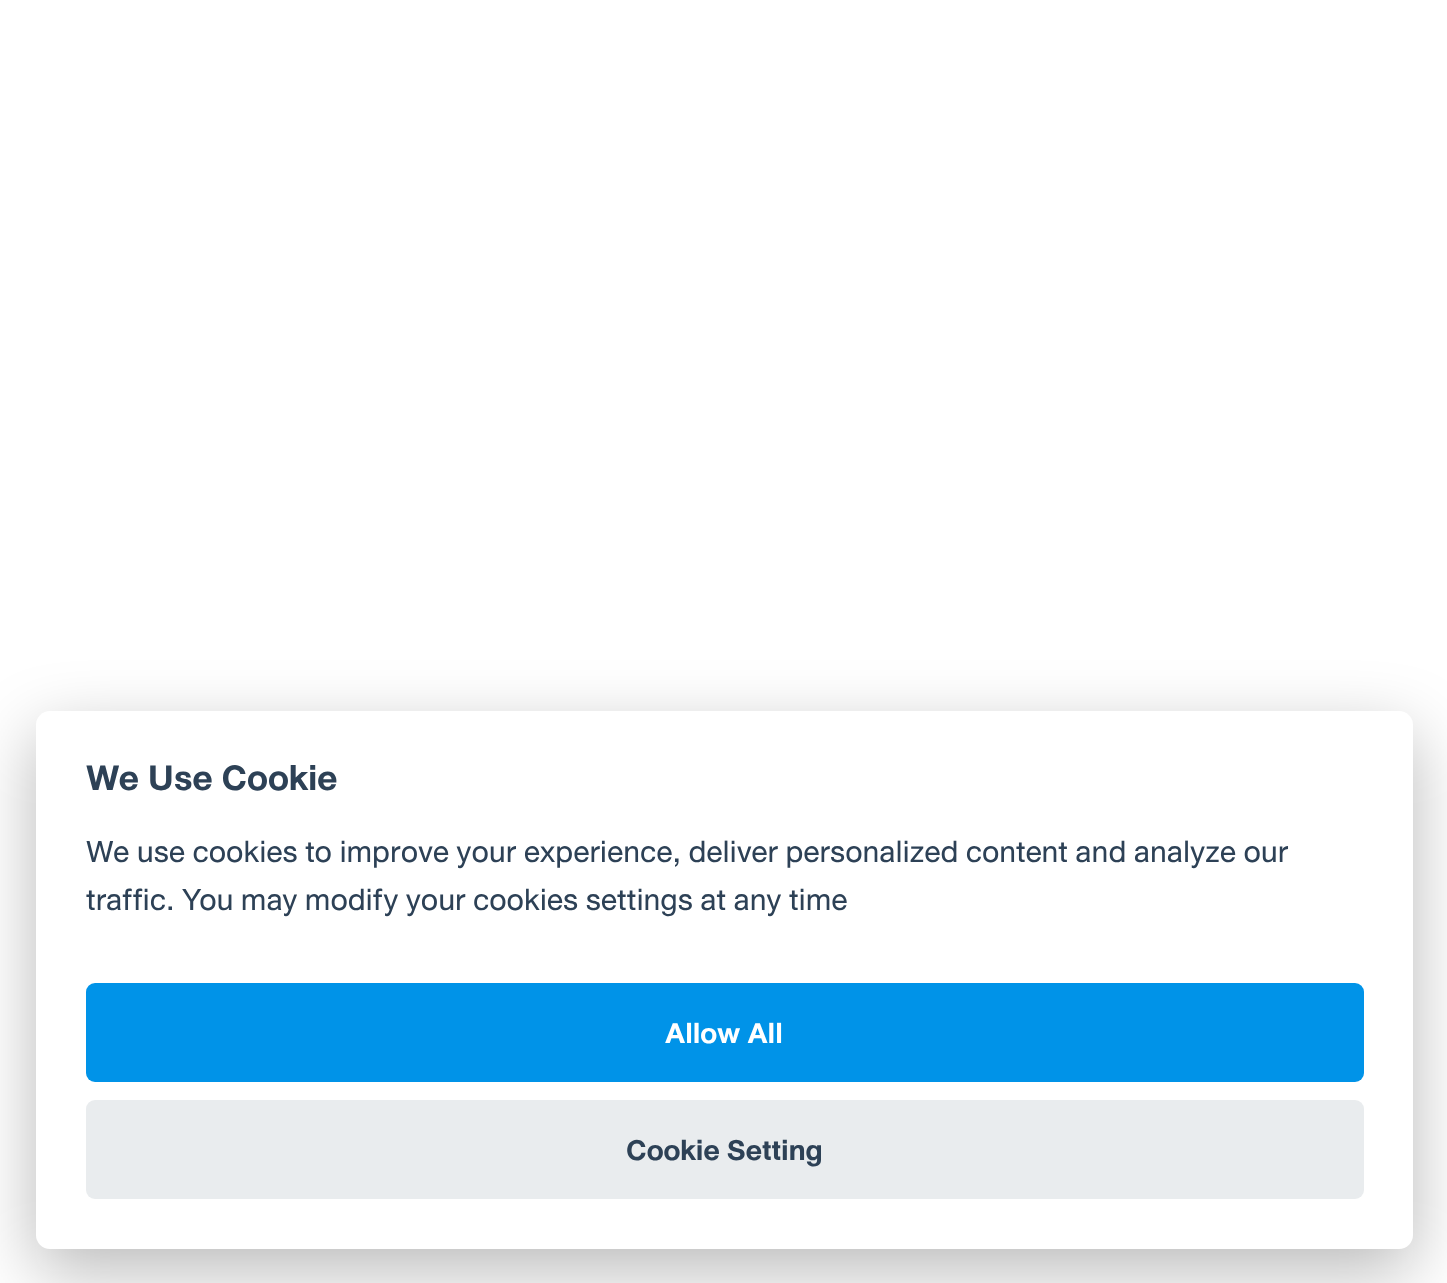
<!DOCTYPE html>
<meta charset="utf-8">
<style>body { margin: 0 } canvas { display: block }</style>
<canvas id="canvas" width="1447" height="1283"></canvas>
<script>
window.onload = function () {
	const canvas = document.getElementById("canvas");
	const ctx = canvas.getContext("2d");
	ctx.miterLimit = 4;
	ctx.fontKerning = "normal";
	function txt(s, x, y) {
		ctx.fillText(s, x, y);
	}
	function fill(x, y, w, h) {
		ctx.fillRect(x, y, w, h);
	}
	function round(x, y, w, h, r) {
		ctx.beginPath();
		ctx.roundRect(x, y, w, h, r);
		ctx.fill();
	}

	ctx.fillStyle = "#FFFFFF";
	fill(0, 0, 1447, 1283);
	ctx.fillStyle = "rgba(2, 2, 3, 0.28)";
	ctx.filter = "blur(34px)";
	ctx.beginPath();
	ctx.roundRect(36, 734, 1377, 537, 14);
	ctx.fill();
	ctx.filter = "none";
	ctx.fillStyle = "#FFFFFF";
	round(36, 711, 1377, 538, 14);
	ctx.fillStyle = "#0093E8";
	round(86, 983, 1278, 99, 9);
	ctx.fillStyle = "#E9ECEE";
	round(86, 1100, 1278, 99, 9);
	ctx.font = "bold 37.75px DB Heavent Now";
	ctx.fillStyle = "#2D4156";
	txt("We Use Cookie", 86, 790);
	ctx.font = "32.4px DB Heavent Now";
	txt("We use cookies to improve your experience, deliver personalized content and analyze our", 86, 862);
	txt("traffic. You may modify your cookies settings at any time", 86, 910);
	ctx.font = "bold 30.5px DB Heavent Now";
	ctx.fillStyle = "#FFFFFF";
	txt("Allow All", 665, 1043);
	ctx.fillStyle = "#2D4156";
	txt("Cookie Setting", 626, 1160);
};
</script>
